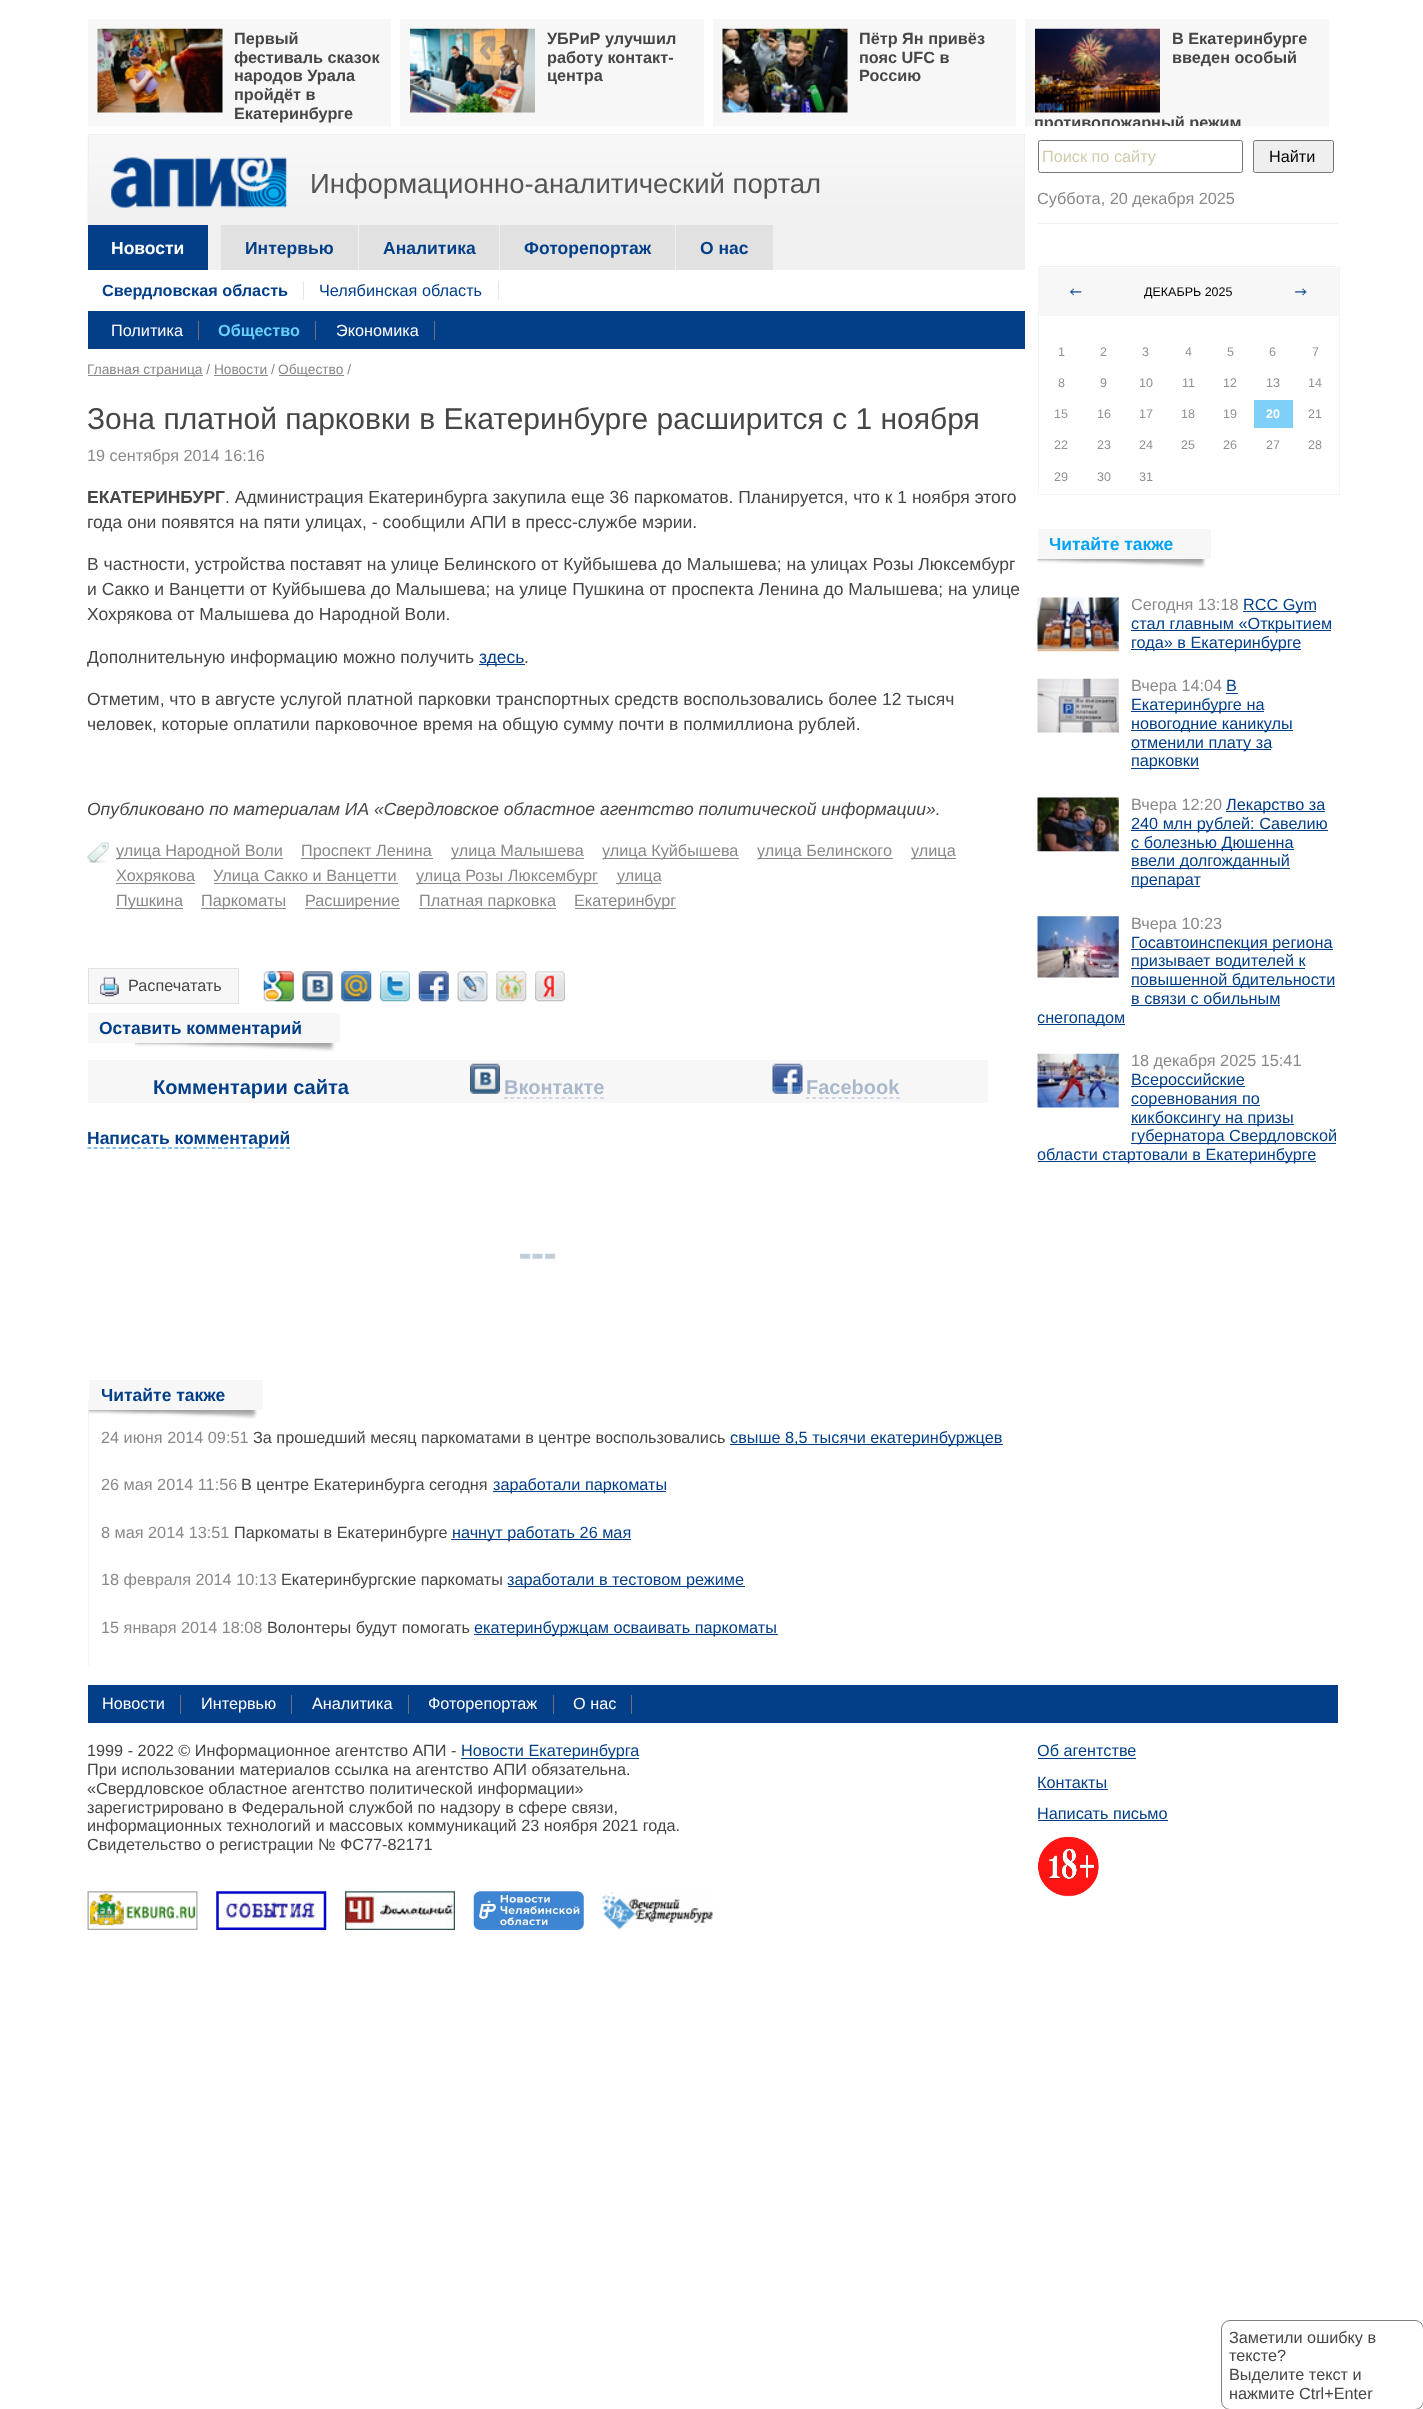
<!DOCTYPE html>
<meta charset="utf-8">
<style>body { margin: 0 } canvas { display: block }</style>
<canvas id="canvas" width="1423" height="2409"></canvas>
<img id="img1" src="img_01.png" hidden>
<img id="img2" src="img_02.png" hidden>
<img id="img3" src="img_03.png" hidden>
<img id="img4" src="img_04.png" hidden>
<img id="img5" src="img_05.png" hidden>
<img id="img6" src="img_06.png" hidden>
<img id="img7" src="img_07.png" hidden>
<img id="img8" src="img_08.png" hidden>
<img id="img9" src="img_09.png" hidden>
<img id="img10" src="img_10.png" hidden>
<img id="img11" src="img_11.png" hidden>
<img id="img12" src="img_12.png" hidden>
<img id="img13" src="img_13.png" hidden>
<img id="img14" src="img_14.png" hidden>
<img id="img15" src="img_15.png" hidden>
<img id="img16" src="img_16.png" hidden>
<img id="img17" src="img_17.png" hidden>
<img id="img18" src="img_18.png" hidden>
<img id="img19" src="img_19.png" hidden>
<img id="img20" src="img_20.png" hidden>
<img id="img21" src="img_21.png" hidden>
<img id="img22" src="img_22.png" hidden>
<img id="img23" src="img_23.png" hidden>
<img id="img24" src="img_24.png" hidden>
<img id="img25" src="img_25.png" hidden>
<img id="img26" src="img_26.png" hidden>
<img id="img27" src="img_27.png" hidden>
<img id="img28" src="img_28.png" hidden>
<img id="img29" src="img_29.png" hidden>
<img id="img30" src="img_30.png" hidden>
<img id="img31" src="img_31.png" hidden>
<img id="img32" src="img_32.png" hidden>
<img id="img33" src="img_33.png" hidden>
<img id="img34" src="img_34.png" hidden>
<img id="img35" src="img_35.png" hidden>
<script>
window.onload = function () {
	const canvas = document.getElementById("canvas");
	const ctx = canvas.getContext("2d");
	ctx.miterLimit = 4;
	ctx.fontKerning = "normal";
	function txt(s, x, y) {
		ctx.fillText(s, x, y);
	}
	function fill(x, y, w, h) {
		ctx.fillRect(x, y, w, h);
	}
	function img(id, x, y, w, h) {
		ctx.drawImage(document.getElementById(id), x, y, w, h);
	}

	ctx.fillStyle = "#FFFFFF";
	fill(0, 0, 1423, 2409);
	ctx.fillStyle = "#F7F7F7";
	fill(88, 19, 303, 107);
	img("img1", 97, 28, 126, 85);
	fill(400, 19, 304, 107);
	img("img2", 410, 28, 125, 85);
	fill(713, 19, 303, 107);
	img("img3", 722, 28, 126, 85);
	fill(1025, 19, 304, 107);
	img("img4", 1035, 28, 125, 85);
	ctx.fillStyle = "#F0F0F0";
	fill(89, 134, 935, 1);
	img("img5", 87, 135, 937, 90);
	fill(1024, 134, 1, 91);
	fill(88, 134, 1, 60);
	img("img6", 111, 157, 176, 51);
	fill(208, 225, 817, 45);
	ctx.fillStyle = "#023F88";
	fill(88, 225, 120, 45);
	ctx.fillStyle = "#E1E1E1";
	fill(221, 225, 137, 45);
	fill(359, 225, 140, 45);
	fill(500, 225, 175, 45);
	fill(676, 225, 97, 45);
	ctx.fillStyle = "#E6E6E6";
	fill(303, 281, 1, 19);
	fill(498, 281, 1, 19);
	ctx.fillStyle = "#023F88";
	fill(88, 311, 937, 38);
	ctx.fillStyle = "#6B7279";
	fill(198, 321, 1, 19);
	fill(315, 321, 1, 19);
	fill(434, 321, 1, 19);
	ctx.fillStyle = "#898989";
	fill(88, 375, 115, 1);
	fill(279, 375, 65, 1);
	fill(214, 375, 54, 1);
	ctx.fillStyle = "#023F88";
	fill(479, 664, 46, 1);
	img("img7", 87, 842, 22, 21);
	ctx.fillStyle = "#898989";
	fill(116, 858, 167, 1);
	fill(301, 858, 132, 1);
	fill(451, 858, 133, 1);
	fill(603, 858, 136, 1);
	fill(758, 858, 135, 1);
	fill(911, 858, 45, 1);
	fill(116, 883, 79, 1);
	fill(214, 883, 184, 1);
	fill(416, 883, 182, 1);
	fill(616, 883, 45, 1);
	fill(116, 908, 67, 1);
	fill(201, 908, 85, 1);
	fill(305, 908, 95, 1);
	fill(419, 908, 137, 1);
	fill(575, 908, 101, 1);
	ctx.fillStyle = "#F7F7F7";
	fill(89, 969, 149, 34);
	img("img8", 100, 977, 19, 20);
	ctx.strokeStyle = "#E1E1E1";
	ctx.strokeRect(88.5, 968.5, 150, 35);
	img("img9", 263, 971, 31, 31);
	img("img10", 302, 971, 31, 31);
	img("img11", 341, 971, 31, 31);
	img("img12", 380, 971, 30, 31);
	img("img13", 418, 971, 31, 31);
	img("img14", 457, 971, 31, 31);
	img("img15", 496, 971, 31, 31);
	img("img16", 535, 971, 30, 31);
	fill(88, 1013, 252, 30);
	img("img17", 135, 1043, 200, 9);
	fill(88, 1060, 900, 43);
	img("img18", 470, 1063, 30, 31);
	ctx.beginPath();
	ctx.moveTo(504, 1098);
	ctx.lineTo(604, 1098);
	ctx.strokeStyle = "#A9B8CB";
	ctx.lineWidth = 1.2;
	ctx.setLineDash([3.75, 2.66]);
	ctx.stroke();
	img("img19", 772, 1063, 31, 31);
	ctx.beginPath();
	ctx.moveTo(806, 1098);
	ctx.lineTo(900, 1098);
	ctx.setLineDash([3.75, 2.68]);
	ctx.stroke();
	ctx.beginPath();
	ctx.moveTo(87.5, 1148);
	ctx.lineTo(290, 1148);
	ctx.strokeStyle = "#007EDC";
	ctx.setLineDash([3.75, 2.46]);
	ctx.stroke();
	img("img20", 520, 1253, 36, 6);
	ctx.fillStyle = "#F4F4F4";
	fill(88, 1401, 1, 265);
	ctx.fillStyle = "#F7F7F7";
	fill(89, 1380, 174, 30);
	img("img21", 88, 1410, 169, 9);
	ctx.fillStyle = "#023F88";
	fill(730, 1444, 273, 1);
	fill(493, 1491, 173, 1);
	fill(451, 1539, 180, 1);
	fill(508, 1586, 237, 1);
	fill(474, 1634, 304, 1);
	ctx.beginPath();
	ctx.roundRect(1038.5, 140.5, 204, 32, 2);
	ctx.strokeStyle = "#767676";
	ctx.lineWidth = 1;
	ctx.setLineDash([]);
	ctx.stroke();
	ctx.fillStyle = "#EFEFEF";
	ctx.beginPath();
	ctx.roundRect(1253.5, 140.5, 80, 32, 2);
	ctx.fill();
	ctx.stroke();
	ctx.fillStyle = "#F0F0F0";
	fill(1038, 223, 300, 1);
	ctx.strokeStyle = "#F4F4F4";
	ctx.strokeRect(1038.5, 266.5, 301, 228);
	ctx.fillStyle = "#F7F7F7";
	fill(1039, 268, 300, 48);
	img("img22", 1069, 288, 13, 8);
	img("img23", 1294, 288, 13, 8);
	ctx.fillStyle = "#7FD0F9";
	fill(1254, 400, 39, 28);
	img("img24", 1037, 558, 169, 10);
	ctx.fillStyle = "#F7F7F7";
	fill(1038, 529, 173, 30);
	img("img25", 1037, 597, 82, 55);
	ctx.fillStyle = "#023F88";
	fill(1243, 611, 73, 1);
	fill(1131, 630, 200, 1);
	fill(1131, 649, 170, 1);
	img("img26", 1037, 678, 82, 55);
	fill(1226, 693, 12, 1);
	fill(1131, 711, 133, 1);
	fill(1131, 730, 162, 1);
	fill(1131, 749, 140, 1);
	fill(1131, 768, 68, 1);
	img("img27", 1037, 797, 82, 55);
	fill(1226, 811, 99, 1);
	fill(1131, 830, 197, 1);
	fill(1131, 849, 163, 1);
	fill(1131, 868, 159, 1);
	fill(1131, 886, 69, 1);
	img("img28", 1037, 916, 82, 62);
	fill(1131, 949, 202, 1);
	fill(1131, 968, 174, 1);
	fill(1131, 986, 204, 1);
	fill(1131, 1005, 149, 1);
	fill(1038, 1024, 87, 1);
	img("img29", 1037, 1053, 82, 55);
	fill(1131, 1086, 114, 1);
	fill(1131, 1105, 129, 1);
	fill(1131, 1124, 163, 1);
	fill(1131, 1143, 205, 1);
	fill(1038, 1161, 278, 1);
	fill(88, 1685, 1250, 38);
	ctx.fillStyle = "#6B7279";
	fill(180, 1695, 1, 19);
	fill(291, 1695, 1, 19);
	fill(408, 1695, 1, 19);
	fill(553, 1695, 1, 19);
	fill(631, 1695, 1, 19);
	ctx.fillStyle = "#023F88";
	fill(461, 1758, 178, 1);
	img("img30", 87, 1891, 111, 39);
	img("img31", 216, 1891, 111, 39);
	img("img32", 345, 1891, 110, 39);
	img("img33", 473, 1891, 111, 39);
	img("img34", 602, 1892, 111, 38);
	fill(1038, 1758, 98, 1);
	fill(1038, 1789, 70, 1);
	fill(1038, 1820, 130, 1);
	img("img35", 1038, 1837, 61, 60);
	ctx.beginPath();
	ctx.roundRect(1221.5, 2320.5, 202, 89, 8.5);
	ctx.strokeStyle = "#808080";
	ctx.stroke();
	ctx.font = "bold 16.25px Liberation Sans";
	ctx.fillStyle = "#464646";
	txt("Первый", 234, 44);
	txt("фестиваль сказок", 234, 63);
	txt("народов Урала", 234, 81);
	txt("пройдёт в", 234, 100);
	txt("Екатеринбурге", 234, 119);
	txt("УБРиР улучшил", 547, 44);
	txt("работу контакт-", 547, 63);
	txt("центра", 547, 81);
	txt("Пётр Ян привёз", 859, 44);
	txt("пояс UFC в", 859, 63);
	txt("Россию", 859, 81);
	txt("В Екатеринбурге", 1172, 44);
	txt("введен особый", 1172, 63);
	ctx.save();
	ctx.beginPath();
	ctx.rect(1025, 19, 304, 107);
	ctx.clip();
	txt("противопожарный режим", 1034, 128);
	ctx.restore();
	ctx.font = "27.5px Liberation Sans";
	ctx.fillStyle = "#555555";
	txt("Информационно-аналитический портал", 310, 193);
	ctx.font = "bold 17.5px Liberation Sans";
	ctx.fillStyle = "#FFFFFF";
	txt("Новости", 111, 254);
	ctx.fillStyle = "#023F88";
	txt("Интервью", 245, 254);
	txt("Аналитика", 383, 254);
	txt("Фоторепортаж", 524, 254);
	txt("О нас", 700, 254);
	ctx.font = "bold 16.25px Liberation Sans";
	txt("Свердловская область", 102, 296);
	ctx.font = "16.25px Liberation Sans";
	txt("Челябинская область", 319, 296);
	ctx.fillStyle = "#FFFFFF";
	txt("Политика", 111, 336);
	ctx.font = "bold 16.25px Liberation Sans";
	ctx.fillStyle = "#68D1F9";
	txt("Общество", 218, 336);
	ctx.font = "16.25px Liberation Sans";
	ctx.fillStyle = "#FFFFFF";
	txt("Экономика", 336, 336);
	ctx.font = "13.75px Liberation Sans";
	ctx.fillStyle = "#898989";
	txt("Главная страница / Новости /", 87, 374);
	txt("Общество /", 278, 374);
	ctx.font = "30px Liberation Sans";
	ctx.fillStyle = "#464646";
	txt("Зона платной парковки в Екатеринбурге расширится с 1 ноября", 87, 429);
	ctx.font = "16.25px Liberation Sans";
	ctx.fillStyle = "#898989";
	txt("19 сентября 2014 16:16", 87, 461);
	ctx.font = "bold 17.5px Liberation Sans";
	ctx.fillStyle = "#464646";
	txt("ЕКАТЕРИНБУРГ", 87, 503);
	ctx.font = "17.5px Liberation Sans";
	txt(". Администрация Екатеринбурга закупила еще 36 паркоматов. Планируется, что к 1 ноября этого", 225, 503);
	txt("года они появятся на пяти улицах, - сообщили АПИ в пресс-службе мэрии.", 87, 528);
	txt("В частности, устройства поставят на улице Белинского от Куйбышева до Малышева; на улицах Розы Люксембург", 87, 570);
	txt("и Сакко и Ванцетти от Куйбышева до Малышева; на улице Пушкина от проспекта Ленина до Малышева; на улице", 87, 595);
	txt("Хохрякова от Малышева до Народной Воли.", 87, 620);
	txt("Дополнительную информацию можно получить", 87, 663);
	ctx.fillStyle = "#023F88";
	txt("здесь", 479, 663);
	ctx.fillStyle = "#464646";
	txt(".", 524, 663);
	txt("Отметим, что в августе услугой платной парковки транспортных средств воспользовались более 12 тысяч", 87, 705);
	txt("человек, которые оплатили парковочное время на общую сумму почти в полмиллиона рублей.", 87, 730);
	ctx.font = "italic 17.5px Liberation Sans";
	txt("Опубликовано по материалам ИА «Свердловское областное агентство политической информации».", 87, 815);
	ctx.font = "16.25px Liberation Sans";
	ctx.fillStyle = "#898989";
	txt("улица Народной Воли", 116, 856);
	txt("Проспект Ленина", 301, 856);
	txt("улица Малышева", 451, 856);
	txt("улица Куйбышева", 602, 856);
	txt("улица Белинского", 757, 856);
	txt("улица", 911, 856);
	txt("Хохрякова", 116, 881);
	txt("Улица Сакко и Ванцетти", 213, 881);
	txt("улица Розы Люксембург", 416, 881);
	txt("улица", 617, 881);
	txt("Пушкина", 116, 906);
	txt("Паркоматы", 201, 906);
	txt("Расширение", 305, 906);
	txt("Платная парковка", 419, 906);
	txt("Екатеринбург", 574, 906);
	ctx.fillStyle = "#464646";
	txt("Распечатать", 128, 991);
	ctx.font = "bold 17.5px Liberation Sans";
	ctx.fillStyle = "#023F88";
	txt("Оставить комментарий", 99, 1034);
	ctx.font = "bold 20px Liberation Sans";
	txt("Комментарии сайта", 153, 1094);
	ctx.fillStyle = "#A9B8CB";
	txt("Вконтакте", 504, 1094);
	txt("Facebook", 806, 1094);
	ctx.font = "bold 17.5px Liberation Sans";
	ctx.fillStyle = "#023F88";
	txt("Написать комментарий", 87, 1144);
	txt("Читайте также", 101, 1401);
	ctx.font = "16.25px Liberation Sans";
	ctx.fillStyle = "#898989";
	txt("24 июня 2014 09:51", 101, 1443);
	ctx.fillStyle = "#464646";
	txt("За прошедший месяц паркоматами в центре воспользовались", 253, 1443);
	ctx.fillStyle = "#023F88";
	txt("свыше 8,5 тысячи екатеринбуржцев", 730, 1443);
	ctx.fillStyle = "#898989";
	txt("26 мая 2014 11:56", 101, 1490);
	ctx.fillStyle = "#464646";
	txt("В центре Екатеринбурга сегодня", 241, 1490);
	ctx.fillStyle = "#023F88";
	txt("заработали паркоматы", 493, 1490);
	ctx.fillStyle = "#898989";
	txt("8 мая 2014 13:51", 101, 1538);
	ctx.fillStyle = "#464646";
	txt("Паркоматы в Екатеринбурге", 234, 1538);
	ctx.fillStyle = "#023F88";
	txt("начнут работать 26 мая", 452, 1538);
	ctx.fillStyle = "#898989";
	txt("18 февраля 2014 10:13", 101, 1585);
	ctx.fillStyle = "#464646";
	txt("Екатеринбургские паркоматы", 281, 1585);
	ctx.fillStyle = "#023F88";
	txt("заработали в тестовом режиме", 507, 1585);
	ctx.fillStyle = "#898989";
	txt("15 января 2014 18:08", 101, 1633);
	ctx.fillStyle = "#464646";
	txt("Волонтеры будут помогать", 267, 1633);
	ctx.fillStyle = "#023F88";
	txt("екатеринбуржцам осваивать паркоматы", 474, 1633);
	ctx.fillStyle = "#D3CAAD";
	txt("Поиск по сайту", 1042, 162);
	ctx.fillStyle = "#000000";
	txt("Найти", 1269, 162);
	ctx.fillStyle = "#898989";
	txt("Суббота, 20 декабря 2025", 1037, 204);
	ctx.font = "12.5px Liberation Sans";
	ctx.fillStyle = "#000000";
	txt("ДЕКАБРЬ 2025", 1144, 296);
	ctx.fillStyle = "#919191";
	txt("1", 1058, 356);
	txt("2", 1100, 356);
	txt("3", 1142, 356);
	txt("4", 1185, 356);
	txt("5", 1227, 356);
	txt("6", 1269, 356);
	txt("7", 1312, 356);
	txt("8", 1058, 387);
	txt("9", 1100, 387);
	txt("10", 1139, 387);
	txt("11", 1182, 387);
	txt("12", 1223, 387);
	txt("13", 1266, 387);
	txt("14", 1308, 387);
	txt("15", 1054, 418);
	txt("16", 1097, 418);
	txt("17", 1139, 418);
	txt("18", 1181, 418);
	txt("19", 1223, 418);
	ctx.font = "bold 12.5px Liberation Sans";
	ctx.fillStyle = "#FFFFFF";
	txt("20", 1266, 418);
	ctx.font = "12.5px Liberation Sans";
	ctx.fillStyle = "#919191";
	txt("21", 1308, 418);
	txt("22", 1054, 449);
	txt("23", 1097, 449);
	txt("24", 1139, 449);
	txt("25", 1181, 449);
	txt("26", 1223, 449);
	txt("27", 1266, 449);
	txt("28", 1308, 449);
	txt("29", 1054, 481);
	txt("30", 1097, 481);
	txt("31", 1139, 481);
	ctx.font = "bold 17.5px Liberation Sans";
	ctx.fillStyle = "#00A2F3";
	txt("Читайте также", 1049, 550);
	ctx.font = "16.25px Liberation Sans";
	ctx.fillStyle = "#898989";
	txt("Сегодня 13:18", 1131, 610);
	ctx.fillStyle = "#023F88";
	txt("RCC Gym", 1243, 610);
	txt("стал главным «Открытием", 1131, 629);
	txt("года» в Екатеринбурге", 1131, 648);
	ctx.fillStyle = "#898989";
	txt("Вчера 14:04", 1131, 691);
	ctx.fillStyle = "#023F88";
	txt("В", 1226, 691);
	txt("Екатеринбурге на", 1131, 710);
	txt("новогодние каникулы", 1131, 729);
	txt("отменили плату за", 1131, 748);
	txt("парковки", 1131, 766);
	ctx.fillStyle = "#898989";
	txt("Вчера 12:20", 1131, 810);
	ctx.fillStyle = "#023F88";
	txt("Лекарство за", 1226, 810);
	txt("240 млн рублей: Савелию", 1131, 829);
	txt("с болезнью Дюшенна", 1131, 848);
	txt("ввели долгожданный", 1131, 866);
	txt("препарат", 1131, 885);
	ctx.fillStyle = "#898989";
	txt("Вчера 10:23", 1131, 929);
	ctx.fillStyle = "#023F88";
	txt("Госавтоинспекция региона", 1131, 948);
	txt("призывает водителей к", 1131, 966);
	txt("повышенной бдительности", 1131, 985);
	txt("в связи с обильным", 1131, 1004);
	txt("снегопадом", 1037, 1023);
	ctx.fillStyle = "#898989";
	txt("18 декабря 2025 15:41", 1131, 1066);
	ctx.fillStyle = "#023F88";
	txt("Всероссийские", 1131, 1085);
	txt("соревнования по", 1131, 1104);
	txt("кикбоксингу на призы", 1131, 1123);
	txt("губернатора Свердловской", 1131, 1141);
	txt("области стартовали в Екатеринбурге", 1037, 1160);
	ctx.fillStyle = "#FFFFFF";
	txt("Новости", 102, 1709);
	txt("Интервью", 201, 1709);
	txt("Аналитика", 312, 1709);
	txt("Фоторепортаж", 428, 1709);
	txt("О нас", 573, 1709);
	ctx.fillStyle = "#464646";
	txt("1999 - 2022 © Информационное агентство АПИ -", 87, 1756);
	ctx.fillStyle = "#023F88";
	txt("Новости Екатеринбурга", 461, 1756);
	ctx.fillStyle = "#464646";
	txt("При использовании материалов ссылка на агентство АПИ обязательна.", 87, 1775);
	txt("«Свердловское областное агентство политической информации»", 87, 1794);
	txt("зарегистрировано в Федеральной службой по надзору в сфере связи,", 87, 1813);
	txt("информационных технологий и массовых коммуникаций 23 ноября 2021 года.", 87, 1831);
	txt("Свидетельство о регистрации № ФС77-82171", 87, 1850);
	ctx.fillStyle = "#023F88";
	txt("Об агентстве", 1037, 1756);
	txt("Контакты", 1037, 1788);
	txt("Написать письмо", 1037, 1819);
	ctx.fillStyle = "#464646";
	txt("Заметили ошибку в", 1229, 2343);
	txt("тексте?", 1229, 2361);
	txt("Выделите текст и", 1229, 2380);
	txt("нажмите Ctrl+Enter", 1229, 2399);
};
</script>
